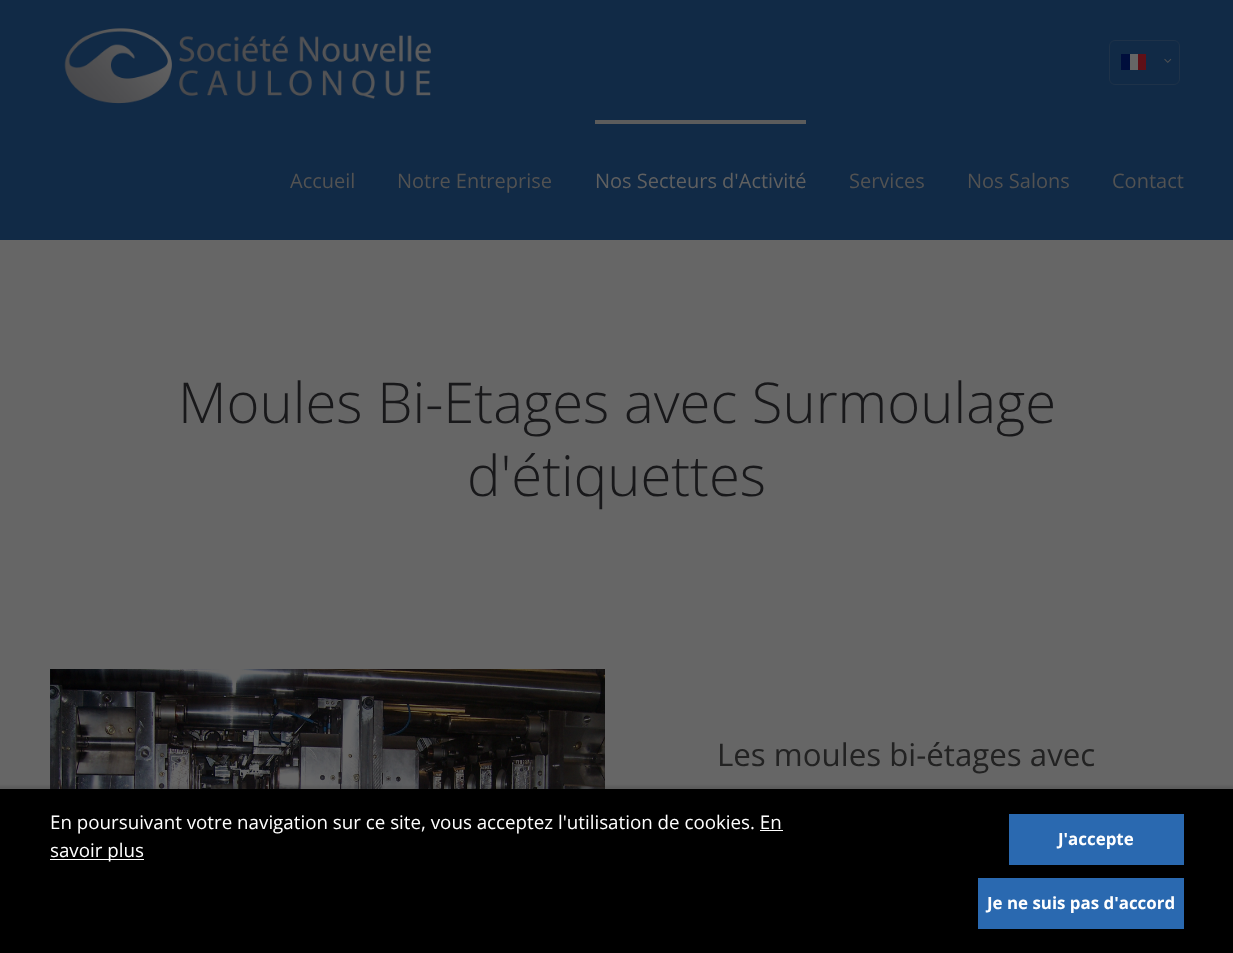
<!DOCTYPE html>
<meta charset="utf-8">
<style>body { margin: 0 } canvas { display: block }</style>
<canvas id="canvas" width="1233" height="953"></canvas>
<img id="img1" src="img_01.png" hidden>
<img id="img2" src="img_02.png" hidden>
<img id="img3" src="img_03.png" hidden>
<script>
window.onload = function () {
	const canvas = document.getElementById("canvas");
	const ctx = canvas.getContext("2d");
	ctx.miterLimit = 4;
	ctx.fontKerning = "normal";
	function txt(s, x, y) {
		ctx.fillText(s, x, y);
	}
	function fill(x, y, w, h) {
		ctx.fillRect(x, y, w, h);
	}
	function img(id, x, y, w, h) {
		ctx.drawImage(document.getElementById(id), x, y, w, h);
	}

	ctx.fillStyle = "#666666";
	fill(0, 0, 1233, 953);
	ctx.fillStyle = "#112A46";
	fill(0, 0, 1233, 240);
	img("img1", 64, 28, 367, 76);
	ctx.fillStyle = "#000E3C";
	fill(1121, 54, 9, 16);
	ctx.fillStyle = "#666666";
	fill(1130, 54, 8, 16);
	ctx.fillStyle = "#5F1017";
	fill(1138, 54, 8, 16);
	ctx.beginPath();
	ctx.roundRect(1109.5, 40.5, 70, 44, 5.5);
	ctx.strokeStyle = "#1E3249";
	ctx.stroke();
	img("img2", 1164, 58, 8, 5);
	ctx.fillStyle = "#5C5C5C";
	fill(595, 120, 211, 4);
	img("img3", 50, 669, 555, 120);
	ctx.fillStyle = "rgba(0, 0, 0, 0.1)";
	ctx.filter = "blur(1px)";
	ctx.beginPath();
	ctx.rect(-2, 786, 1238, 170);
	ctx.fill();
	ctx.filter = "none";
	ctx.fillStyle = "#000000";
	fill(0, 789, 1233, 164);
	ctx.fillStyle = "#FFFFFF";
	fill(760, 830, 23, 1);
	fill(50, 859, 94, 1);
	ctx.fillStyle = "#2A69B0";
	fill(1009, 814, 175, 51);
	fill(978, 878, 206, 51);
	ctx.font = "20px Open Sans";
	ctx.fillStyle = "#525252";
	txt("Accueil", 290, 188);
	txt("Notre Entreprise", 397, 188);
	ctx.fillStyle = "#606060";
	txt("Nos Secteurs d'Activité", 595, 188);
	ctx.fillStyle = "#525252";
	txt("Services", 849, 188);
	txt("Nos Salons", 967, 188);
	txt("Contact", 1112, 188);
	ctx.font = "300 56.25px Open Sans";
	ctx.fillStyle = "#18181A";
	txt("Moules Bi-Etages avec Surmoulage", 178, 423);
	txt("d'étiquettes", 467, 496);
	ctx.font = "31.25px Open Sans";
	ctx.fillStyle = "#222222";
	txt("Les moules bi-étages avec", 717, 766);
	ctx.font = "18.75px Open Sans";
	ctx.fillStyle = "#FFFFFF";
	txt("En poursuivant votre navigation sur ce site, vous acceptez l'utilisation de cookies. En", 50, 829);
	txt("savoir plus", 50, 857);
	ctx.font = "bold 16.9px Open Sans";
	txt("J'accepte", 1058, 845);
	txt("Je ne suis pas d'accord", 987, 909);
};
</script>
